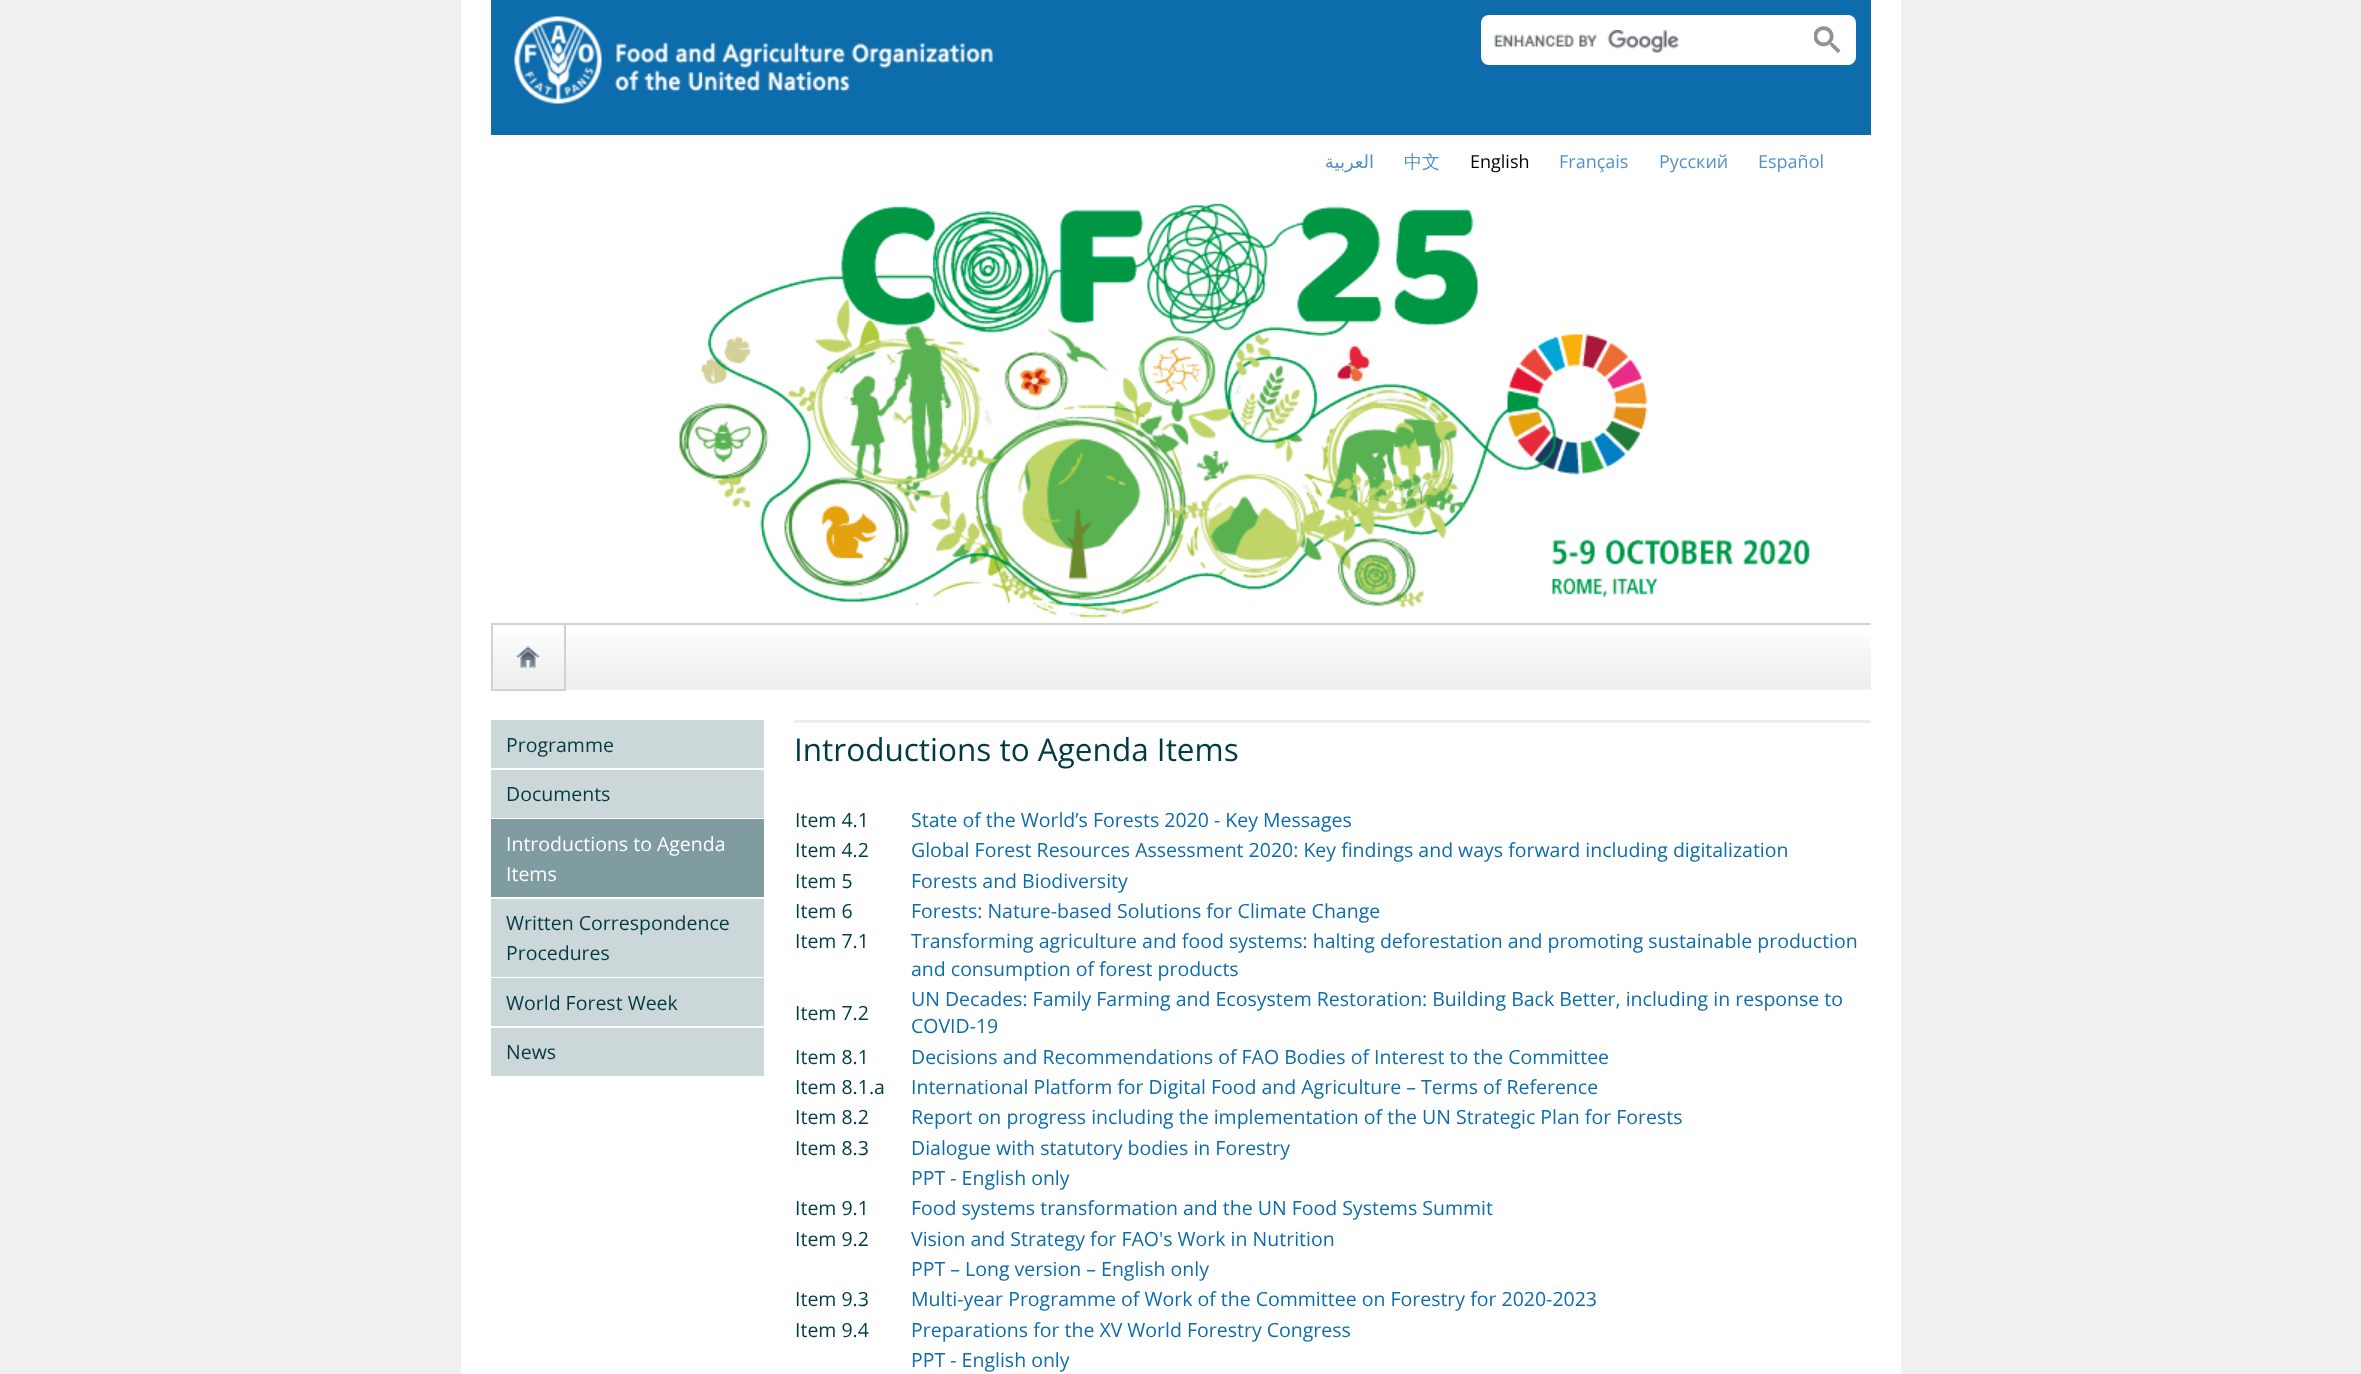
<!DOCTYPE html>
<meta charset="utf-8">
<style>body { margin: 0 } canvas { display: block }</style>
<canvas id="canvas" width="2361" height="1374"></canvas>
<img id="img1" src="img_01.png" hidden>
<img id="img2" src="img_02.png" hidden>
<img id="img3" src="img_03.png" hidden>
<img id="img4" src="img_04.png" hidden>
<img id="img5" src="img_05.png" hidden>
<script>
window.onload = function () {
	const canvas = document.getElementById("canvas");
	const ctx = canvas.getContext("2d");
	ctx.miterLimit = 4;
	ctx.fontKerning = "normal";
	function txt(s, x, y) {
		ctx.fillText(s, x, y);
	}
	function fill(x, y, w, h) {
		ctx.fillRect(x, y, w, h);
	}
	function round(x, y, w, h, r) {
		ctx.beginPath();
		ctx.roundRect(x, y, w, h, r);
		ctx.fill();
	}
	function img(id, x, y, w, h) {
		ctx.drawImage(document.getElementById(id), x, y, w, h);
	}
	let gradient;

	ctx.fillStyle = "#F0F0F0";
	fill(0, 0, 2361, 1374);
	ctx.fillStyle = "#FFFFFF";
	fill(461, 0, 1440, 1374);
	ctx.fillStyle = "#0D6CAC";
	fill(491, 0, 1380, 135);
	img("img1", 514, 16, 479, 88);
	ctx.fillStyle = "#FFFFFF";
	round(1481, 15, 375, 50, 8);
	img("img2", 1494, 30, 185, 23);
	img("img3", 1814, 26, 27, 28);
	img("img4", 679, 203, 1131, 416);
	gradient = ctx.createLinearGradient(1181, 624, 1181, 690);
	gradient.addColorStop(0, "#FFFFFF");
	gradient.addColorStop(0.84, "#EFEFEF");
	ctx.fillStyle = gradient;
	fill(493, 633, 1378, 57);
	ctx.fillStyle = "#D2D0D0";
	fill(491, 623, 1380, 2);
	fill(564, 624, 2, 66);
	fill(491, 689, 75, 2);
	fill(491, 624, 2, 66);
	img("img5", 516, 646, 25, 22);
	ctx.fillStyle = "#CCD7D9";
	fill(491, 720, 273, 48);
	fill(491, 770, 273, 48);
	ctx.fillStyle = "#7F9CA0";
	fill(491, 819, 273, 78);
	ctx.fillStyle = "#CCD7D9";
	fill(491, 899, 273, 78);
	fill(491, 978, 273, 48);
	fill(491, 1028, 273, 48);
	ctx.fillStyle = "#EDEDF0";
	fill(794, 720, 1077, 3);
	ctx.direction = "rtl";
	ctx.font = "18px DejaVu Sans";
	ctx.fillStyle = "#5191C8";
	txt("العربية", 1374, 168);
	ctx.direction = "ltr";
	ctx.font = "500 18px WenQuanYi Zen Hei";
	txt("中文", 1404, 168);
	ctx.font = "18px Open Sans";
	ctx.fillStyle = "#000000";
	txt("English", 1470, 168);
	ctx.fillStyle = "#5191C8";
	txt("Français", 1559, 168);
	txt("Русский", 1659, 168);
	txt("Español", 1758, 168);
	ctx.font = "19.5px Open Sans";
	ctx.fillStyle = "#003B43";
	txt("Programme", 506, 752);
	txt("Documents", 506, 801);
	ctx.fillStyle = "#FFFFFF";
	txt("Introductions to Agenda", 506, 851);
	txt("Items", 506, 881);
	ctx.fillStyle = "#003B43";
	txt("Written Correspondence", 506, 930);
	txt("Procedures", 506, 960);
	txt("World Forest Week", 506, 1010);
	txt("News", 506, 1059);
	ctx.font = "31.5px Open Sans";
	txt("Introductions to Agenda Items", 794, 761);
	ctx.font = "19.5px Open Sans";
	txt("Item 4.1", 795, 827);
	ctx.fillStyle = "#0D6CAC";
	txt("State of the World’s Forests 2020 - Key Messages", 911, 827);
	ctx.fillStyle = "#003B43";
	txt("Item 4.2", 795, 857);
	ctx.fillStyle = "#0D6CAC";
	txt("Global Forest Resources Assessment 2020: Key findings and ways forward including digitalization", 911, 857);
	ctx.fillStyle = "#003B43";
	txt("Item 5", 795, 888);
	ctx.fillStyle = "#0D6CAC";
	txt("Forests and Biodiversity", 911, 888);
	ctx.fillStyle = "#003B43";
	txt("Item 6", 795, 918);
	ctx.fillStyle = "#0D6CAC";
	txt("Forests: Nature-based Solutions for Climate Change", 911, 918);
	ctx.fillStyle = "#003B43";
	txt("Item 7.1", 795, 948);
	ctx.fillStyle = "#0D6CAC";
	txt("Transforming agriculture and food systems: halting deforestation and promoting sustainable production", 911, 948);
	txt("and consumption of forest products", 911, 976);
	ctx.fillStyle = "#003B43";
	txt("Item 7.2", 795, 1020);
	ctx.fillStyle = "#0D6CAC";
	txt("UN Decades: Family Farming and Ecosystem Restoration: Building Back Better, including in response to", 911, 1006);
	txt("COVID-19", 911, 1033);
	ctx.fillStyle = "#003B43";
	txt("Item 8.1", 795, 1064);
	ctx.fillStyle = "#0D6CAC";
	txt("Decisions and Recommendations of FAO Bodies of Interest to the Committee", 911, 1064);
	ctx.fillStyle = "#003B43";
	txt("Item 8.1.a", 795, 1094);
	ctx.fillStyle = "#0D6CAC";
	txt("International Platform for Digital Food and Agriculture – Terms of Reference", 911, 1094);
	ctx.fillStyle = "#003B43";
	txt("Item 8.2", 795, 1124);
	ctx.fillStyle = "#0D6CAC";
	txt("Report on progress including the implementation of the UN Strategic Plan for Forests", 911, 1124);
	ctx.fillStyle = "#003B43";
	txt("Item 8.3", 795, 1155);
	ctx.fillStyle = "#0D6CAC";
	txt("Dialogue with statutory bodies in Forestry", 911, 1155);
	txt("PPT - English only", 911, 1185);
	ctx.fillStyle = "#003B43";
	txt("Item 9.1", 795, 1215);
	ctx.fillStyle = "#0D6CAC";
	txt("Food systems transformation and the UN Food Systems Summit", 911, 1215);
	ctx.fillStyle = "#003B43";
	txt("Item 9.2", 795, 1246);
	ctx.fillStyle = "#0D6CAC";
	txt("Vision and Strategy for FAO's Work in Nutrition", 911, 1246);
	txt("PPT – Long version – English only", 911, 1276);
	ctx.fillStyle = "#003B43";
	txt("Item 9.3", 795, 1306);
	ctx.fillStyle = "#0D6CAC";
	txt("Multi-year Programme of Work of the Committee on Forestry for 2020-2023", 911, 1306);
	ctx.fillStyle = "#003B43";
	txt("Item 9.4", 795, 1337);
	ctx.fillStyle = "#0D6CAC";
	txt("Preparations for the XV World Forestry Congress", 911, 1337);
	txt("PPT - English only", 911, 1367);
};
</script>
